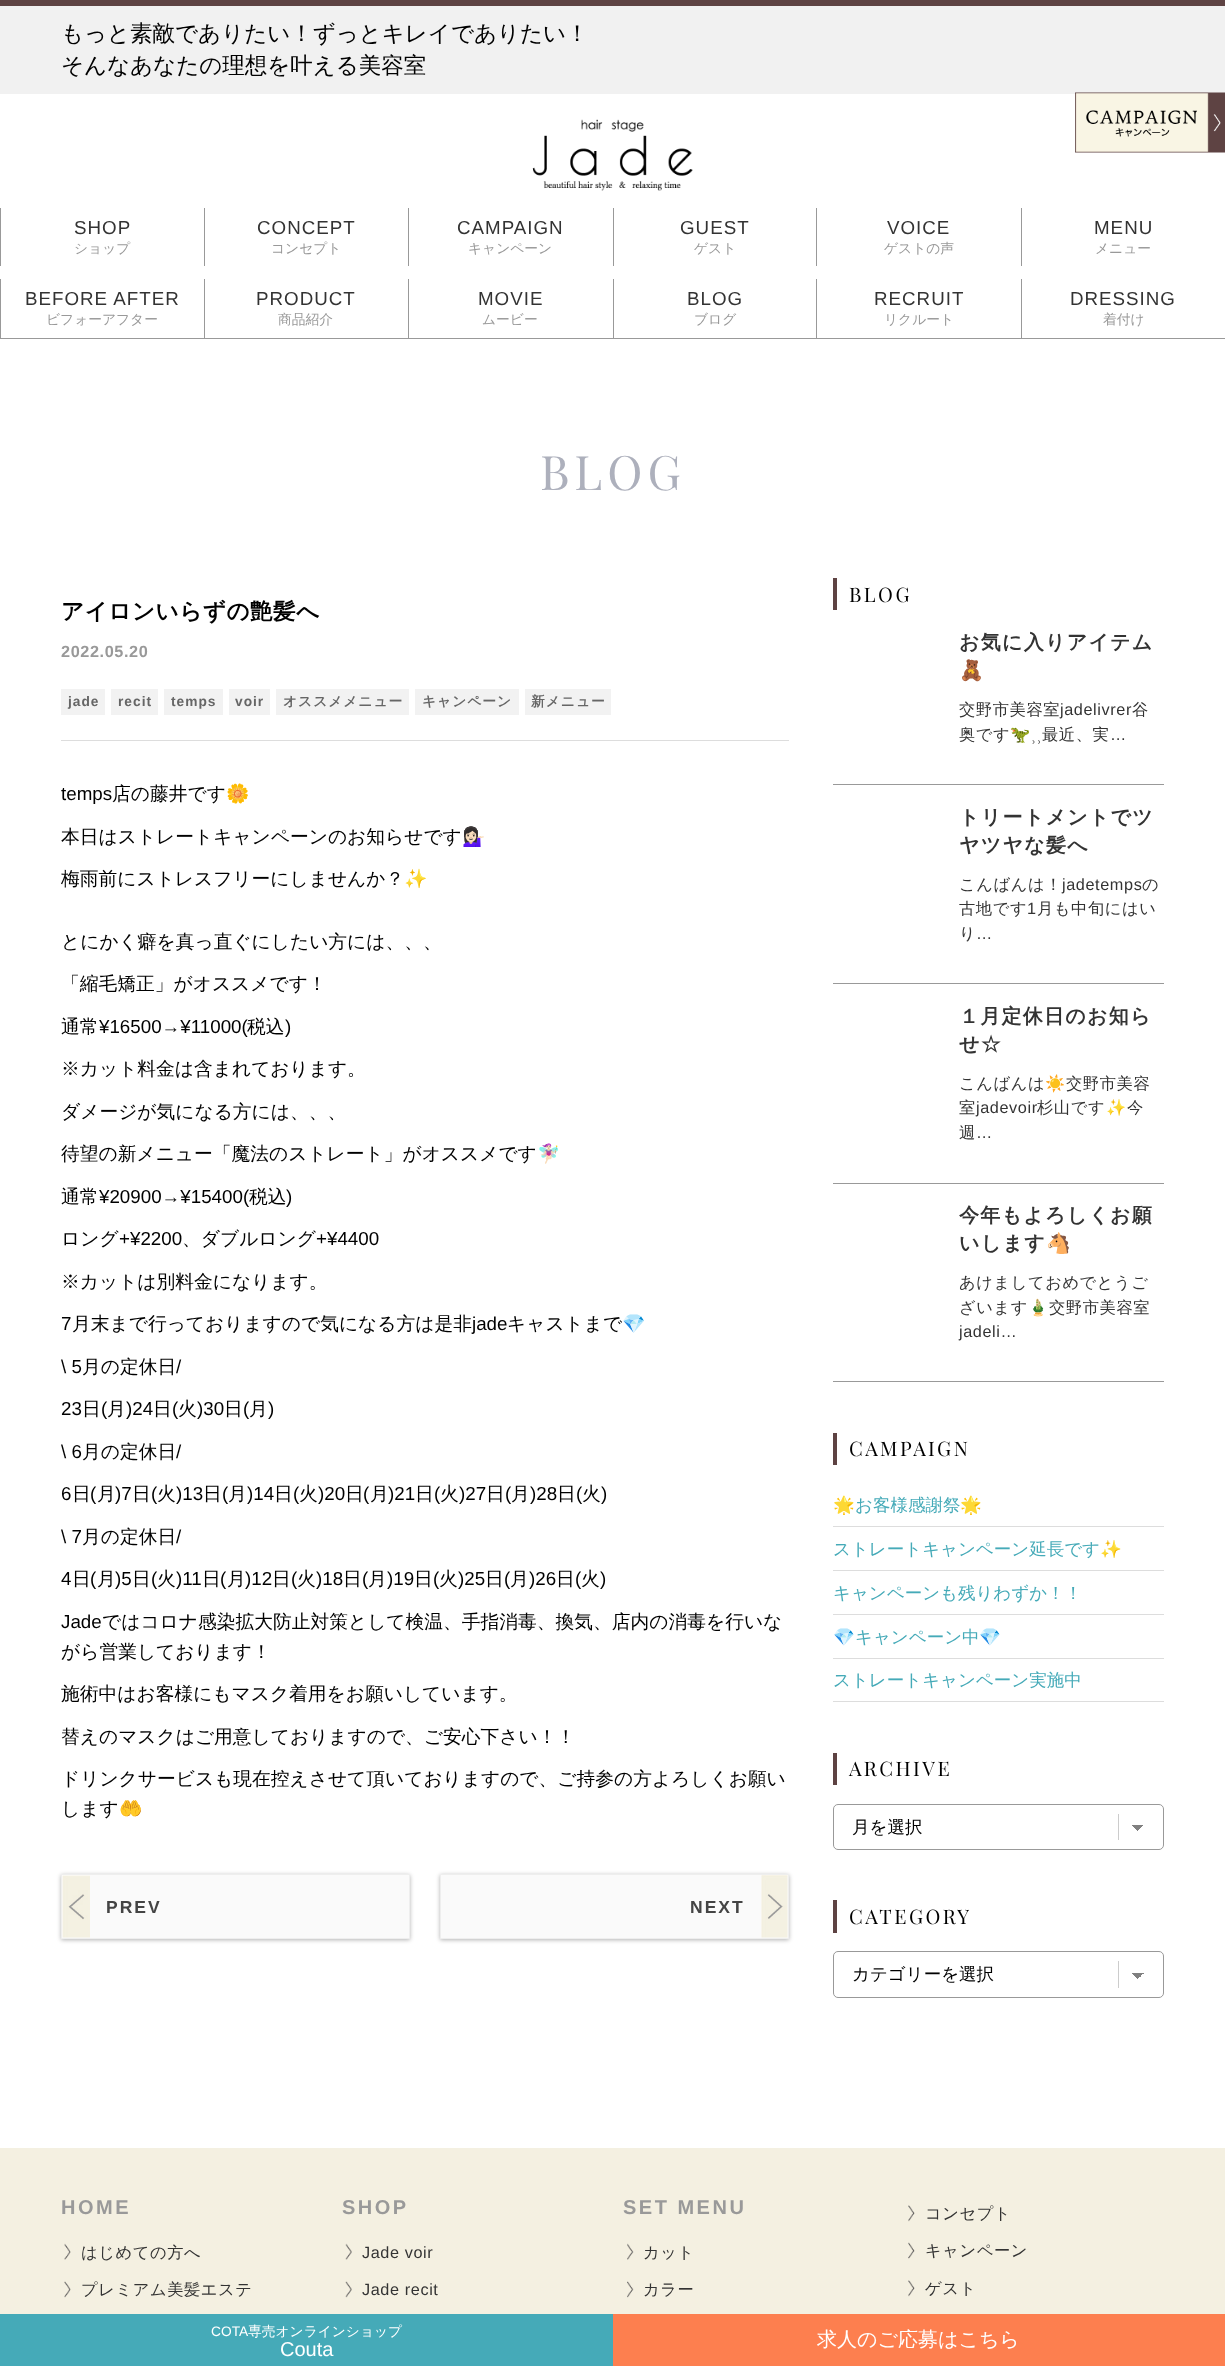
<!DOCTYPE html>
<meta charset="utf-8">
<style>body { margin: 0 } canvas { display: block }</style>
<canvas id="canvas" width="1225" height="2366"></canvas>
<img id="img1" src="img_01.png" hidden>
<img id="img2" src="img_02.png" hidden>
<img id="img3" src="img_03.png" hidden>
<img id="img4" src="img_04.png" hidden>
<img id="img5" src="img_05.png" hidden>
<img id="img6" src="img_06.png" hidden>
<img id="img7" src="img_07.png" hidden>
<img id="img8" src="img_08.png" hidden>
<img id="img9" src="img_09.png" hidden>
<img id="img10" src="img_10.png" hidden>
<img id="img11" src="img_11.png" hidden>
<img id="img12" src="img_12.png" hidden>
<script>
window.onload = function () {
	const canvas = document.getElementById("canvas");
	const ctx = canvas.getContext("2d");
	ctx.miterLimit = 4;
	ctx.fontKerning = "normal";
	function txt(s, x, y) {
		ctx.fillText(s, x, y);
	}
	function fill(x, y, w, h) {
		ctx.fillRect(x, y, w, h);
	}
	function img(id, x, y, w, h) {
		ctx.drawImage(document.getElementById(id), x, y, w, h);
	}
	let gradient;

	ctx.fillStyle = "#FFFFFF";
	fill(0, 0, 1225, 2366);
	ctx.fillStyle = "#5E4343";
	fill(0, 0, 1225, 6);
	ctx.fillStyle = "#999999";
	fill(0, 338, 1225, 1);
	ctx.fillStyle = "#F1F1F1";
	fill(0, 6, 1225, 88);
	img("img1", 532, 119, 161, 72);
	ctx.fillStyle = "#999999";
	fill(204, 208, 1, 58);
	fill(0, 208, 1, 58);
	fill(408, 208, 1, 58);
	fill(613, 208, 1, 58);
	fill(816, 208, 1, 58);
	fill(1021, 208, 1, 58);
	fill(204, 279, 1, 59);
	fill(0, 279, 1, 59);
	fill(408, 279, 1, 59);
	fill(613, 279, 1, 59);
	fill(816, 279, 1, 59);
	fill(1021, 279, 1, 59);
	img("img2", 1075, 92, 150, 61);
	ctx.fillStyle = "#DDDDDD";
	fill(61, 740, 728, 1);
	ctx.fillStyle = "#F2F2F2";
	fill(61, 689, 44, 26);
	fill(111, 689, 47, 26);
	fill(164, 689, 59, 26);
	fill(229, 689, 41, 26);
	fill(276, 689, 133, 26);
	fill(415, 689, 104, 26);
	fill(525, 689, 86, 26);
	ctx.fillStyle = "rgba(0, 0, 0, 0.3)";
	ctx.filter = "blur(2px)";
	ctx.beginPath();
	ctx.rect(61, 1875, 349, 65);
	ctx.fill();
	ctx.filter = "none";
	ctx.fillStyle = "#FAFAFA";
	ctx.beginPath();
	ctx.rect(61.5, 1874.5, 348, 64);
	ctx.fill();
	ctx.strokeStyle = "#EEEEEE";
	ctx.stroke();
	img("img3", 62, 1875, 28, 63);
	ctx.fillStyle = "rgba(0, 0, 0, 0.3)";
	ctx.filter = "blur(2px)";
	ctx.beginPath();
	ctx.rect(440, 1875, 349, 65);
	ctx.fill();
	ctx.filter = "none";
	ctx.fillStyle = "#FAFAFA";
	ctx.beginPath();
	ctx.rect(440.5, 1874.5, 348, 64);
	ctx.fill();
	ctx.stroke();
	img("img4", 761, 1875, 27, 63);
	ctx.fillStyle = "#5E4343";
	fill(833, 578, 4, 32);
	ctx.fillStyle = "#999999";
	fill(833, 784, 331, 1);
	fill(833, 983, 331, 1);
	fill(833, 1183, 331, 1);
	fill(833, 1381, 331, 1);
	ctx.fillStyle = "#5E4343";
	fill(833, 1433, 4, 32);
	ctx.fillStyle = "#DDDDDD";
	fill(833, 1526, 331, 1);
	fill(833, 1570, 331, 1);
	fill(833, 1614, 331, 1);
	fill(833, 1658, 331, 1);
	fill(833, 1701, 331, 1);
	ctx.fillStyle = "#5E4343";
	fill(833, 1753, 4, 32);
	ctx.fillStyle = "#CCCCCC";
	fill(1118, 1814, 1, 26);
	gradient = ctx.createLinearGradient(1138, 1825, 1144, 1831);
	gradient.addColorStop(0.5, "#808080");
	gradient.addColorStop(0.5, "#FFFFFF");
	ctx.fillStyle = gradient;
	fill(1138, 1825, 6, 5);
	gradient = ctx.createLinearGradient(1131, 1831, 1138, 1825);
	gradient.addColorStop(0.5, "#FFFFFF");
	gradient.addColorStop(0.5, "#808080");
	ctx.fillStyle = gradient;
	fill(1131, 1825, 7, 6);
	ctx.beginPath();
	ctx.roundRect(833.5, 1804.5, 330, 45, 4.5);
	ctx.strokeStyle = "#999999";
	ctx.stroke();
	ctx.fillStyle = "#5E4343";
	fill(833, 1900, 4, 33);
	ctx.fillStyle = "#CCCCCC";
	fill(1118, 1961, 1, 27);
	gradient = ctx.createLinearGradient(1138, 1973, 1144, 1979);
	gradient.addColorStop(0.5, "#808080");
	gradient.addColorStop(0.5, "#FFFFFF");
	ctx.fillStyle = gradient;
	fill(1138, 1973, 6, 5);
	gradient = ctx.createLinearGradient(1131, 1979, 1138, 1973);
	gradient.addColorStop(0.5, "#FFFFFF");
	gradient.addColorStop(0.5, "#808080");
	ctx.fillStyle = gradient;
	fill(1131, 1973, 7, 6);
	ctx.beginPath();
	ctx.roundRect(833.5, 1951.5, 330, 46, 4.5);
	ctx.stroke();
	ctx.fillStyle = "#F4F0E1";
	fill(0, 2148, 1225, 166);
	img("img5", 64, 2243, 7, 17);
	img("img6", 64, 2281, 7, 17);
	img("img7", 345, 2243, 7, 17);
	img("img8", 345, 2281, 7, 17);
	img("img9", 627, 2243, 7, 17);
	img("img10", 627, 2281, 7, 17);
	img("img11", 908, 2205, 7, 17);
	img("img12", 908, 2242, 7, 17);
	img("img11", 908, 2280, 7, 17);
	ctx.fillStyle = "#FD7F4F";
	fill(613, 2314, 612, 52);
	ctx.fillStyle = "#45AAB8";
	fill(0, 2314, 613, 52);
	ctx.font = "500 22.5px WenQuanYi Zen Hei";
	ctx.fillStyle = "#000000";
	txt("もっと素敵でありたい！ずっとキレイでありたい！", 61, 41);
	txt("そんなあなたの理想を叶える美容室", 61, 73);
	ctx.letterSpacing = "1px";
	ctx.font = "18.75px Liberation Sans";
	ctx.fillStyle = "#333333";
	txt("SHOP", 74, 234);
	ctx.letterSpacing = "0px";
	ctx.font = "500 13.75px WenQuanYi Zen Hei";
	ctx.fillStyle = "#999999";
	txt("ショップ", 74, 253);
	ctx.letterSpacing = "1px";
	ctx.font = "18.75px Liberation Sans";
	ctx.fillStyle = "#333333";
	txt("CONCEPT", 257, 234);
	ctx.letterSpacing = "0px";
	ctx.font = "500 13.75px WenQuanYi Zen Hei";
	ctx.fillStyle = "#999999";
	txt("コンセプト", 271, 253);
	ctx.letterSpacing = "1px";
	ctx.font = "18.75px Liberation Sans";
	ctx.fillStyle = "#333333";
	txt("CAMPAIGN", 457, 234);
	ctx.letterSpacing = "0px";
	ctx.font = "500 13.75px WenQuanYi Zen Hei";
	ctx.fillStyle = "#999999";
	txt("キャンペーン", 468, 253);
	ctx.letterSpacing = "1px";
	ctx.font = "18.75px Liberation Sans";
	ctx.fillStyle = "#333333";
	txt("GUEST", 680, 234);
	ctx.letterSpacing = "0px";
	ctx.font = "500 13.75px WenQuanYi Zen Hei";
	ctx.fillStyle = "#999999";
	txt("ゲスト", 694, 253);
	ctx.letterSpacing = "1px";
	ctx.font = "18.75px Liberation Sans";
	ctx.fillStyle = "#333333";
	txt("VOICE", 887, 234);
	ctx.letterSpacing = "0px";
	ctx.font = "500 13.75px WenQuanYi Zen Hei";
	ctx.fillStyle = "#999999";
	txt("ゲストの声", 884, 253);
	ctx.letterSpacing = "1px";
	ctx.font = "18.75px Liberation Sans";
	ctx.fillStyle = "#333333";
	txt("MENU", 1094, 234);
	ctx.letterSpacing = "0px";
	ctx.font = "500 13.75px WenQuanYi Zen Hei";
	ctx.fillStyle = "#999999";
	txt("メニュー", 1095, 253);
	ctx.letterSpacing = "1px";
	ctx.font = "18.75px Liberation Sans";
	ctx.fillStyle = "#333333";
	txt("BEFORE AFTER", 25, 305);
	ctx.letterSpacing = "0px";
	ctx.font = "500 13.75px WenQuanYi Zen Hei";
	ctx.fillStyle = "#999999";
	txt("ビフォーアフター", 46, 324);
	ctx.letterSpacing = "1px";
	ctx.font = "18.75px Liberation Sans";
	ctx.fillStyle = "#333333";
	txt("PRODUCT", 256, 305);
	ctx.letterSpacing = "0px";
	ctx.font = "500 13.75px WenQuanYi Zen Hei";
	ctx.fillStyle = "#999999";
	txt("商品紹介", 278, 324);
	ctx.letterSpacing = "1px";
	ctx.font = "18.75px Liberation Sans";
	ctx.fillStyle = "#333333";
	txt("MOVIE", 478, 305);
	ctx.letterSpacing = "0px";
	ctx.font = "500 13.75px WenQuanYi Zen Hei";
	ctx.fillStyle = "#999999";
	txt("ムービー", 482, 324);
	ctx.letterSpacing = "1px";
	ctx.font = "18.75px Liberation Sans";
	ctx.fillStyle = "#333333";
	txt("BLOG", 687, 305);
	ctx.letterSpacing = "0px";
	ctx.font = "500 13.75px WenQuanYi Zen Hei";
	ctx.fillStyle = "#999999";
	txt("ブログ", 694, 324);
	ctx.letterSpacing = "1px";
	ctx.font = "18.75px Liberation Sans";
	ctx.fillStyle = "#333333";
	txt("RECRUIT", 874, 305);
	ctx.letterSpacing = "0px";
	ctx.font = "500 13.75px WenQuanYi Zen Hei";
	ctx.fillStyle = "#999999";
	txt("リクルート", 884, 324);
	ctx.letterSpacing = "1px";
	ctx.font = "18.75px Liberation Sans";
	ctx.fillStyle = "#333333";
	txt("DRESSING", 1070, 305);
	ctx.letterSpacing = "0px";
	ctx.font = "500 13.75px WenQuanYi Zen Hei";
	ctx.fillStyle = "#999999";
	txt("着付け", 1103, 324);
	ctx.letterSpacing = "5px";
	ctx.font = "47.5px Playfair Display";
	ctx.fillStyle = "#ADB0BC";
	txt("BLOG", 540, 490);
	ctx.letterSpacing = "0.6px";
	ctx.font = "bold 22.5px WenQuanYi Zen Hei";
	ctx.fillStyle = "#000000";
	txt("アイロンいらずの艶髪へ", 61, 619);
	ctx.font = "bold 16.25px Liberation Sans";
	ctx.fillStyle = "#999999";
	txt("2022.05.20", 61, 657);
	ctx.letterSpacing = "1px";
	ctx.font = "bold 13.75px Liberation Sans";
	ctx.fillStyle = "#666666";
	txt("jade", 68, 706);
	txt("recit", 118, 706);
	txt("temps", 171, 706);
	txt("voir", 235, 706);
	ctx.font = "bold 13.75px WenQuanYi Zen Hei";
	txt("オススメメニュー", 283, 706);
	txt("キャンペーン", 422, 706);
	txt("新メニュー", 531, 706);
	ctx.letterSpacing = "0px";
	ctx.font = "18.75px Liberation Sans";
	ctx.fillStyle = "#000000";
	txt("temps", 61, 800);
	ctx.font = "500 18.75px WenQuanYi Zen Hei";
	txt("店の藤井です", 112, 800);
	ctx.font = "18.75px Noto Color Emoji";
	txt("🌼", 226, 800);
	ctx.font = "500 18.75px WenQuanYi Zen Hei";
	txt("本日はストレートキャンペーンのお知らせです", 61, 843);
	ctx.font = "18.75px Noto Color Emoji";
	txt("💁🏻‍♀️", 462, 843);
	ctx.font = "500 18.75px WenQuanYi Zen Hei";
	txt("梅雨前にストレスフリーにしませんか？", 61, 885);
	ctx.font = "18.75px Noto Color Emoji";
	txt("✨", 404, 885);
	ctx.font = "500 18.75px WenQuanYi Zen Hei";
	txt("とにかく癖を真っ直ぐにしたい方には、、、", 61, 948);
	txt("「縮毛矯正」がオススメです！", 61, 990);
	txt("通常", 61, 1033);
	ctx.font = "18.75px Liberation Sans";
	txt("¥16500→¥11000(", 99, 1033);
	ctx.font = "500 18.75px WenQuanYi Zen Hei";
	txt("税込", 247, 1033);
	ctx.font = "18.75px Liberation Sans";
	txt(")", 285, 1033);
	ctx.font = "500 18.75px WenQuanYi Zen Hei";
	txt("※カット料金は含まれております。", 61, 1075);
	txt("ダメージが気になる方には、、、", 61, 1118);
	txt("待望の新メニュー「魔法のストレート」がオススメです", 61, 1160);
	ctx.font = "18.75px Noto Color Emoji";
	txt("🧚🏻‍♀️", 537, 1160);
	ctx.font = "500 18.75px WenQuanYi Zen Hei";
	txt("通常", 61, 1203);
	ctx.font = "18.75px Liberation Sans";
	txt("¥20900→¥15400(", 99, 1203);
	ctx.font = "500 18.75px WenQuanYi Zen Hei";
	txt("税込", 249, 1203);
	ctx.font = "18.75px Liberation Sans";
	txt(")", 286, 1203);
	ctx.font = "500 18.75px WenQuanYi Zen Hei";
	txt("ロング", 61, 1245);
	ctx.font = "18.75px Liberation Sans";
	txt("+¥2200", 119, 1245);
	ctx.font = "500 18.75px WenQuanYi Zen Hei";
	txt("、ダブルロング", 182, 1245);
	ctx.font = "18.75px Liberation Sans";
	txt("+¥4400", 316, 1245);
	ctx.font = "500 18.75px WenQuanYi Zen Hei";
	txt("※カットは別料金になります。", 61, 1288);
	ctx.font = "18.75px Liberation Sans";
	txt("7", 61, 1330);
	ctx.font = "500 18.75px WenQuanYi Zen Hei";
	txt("月末まで行っておりますので気になる方は是非", 72, 1330);
	ctx.font = "18.75px Liberation Sans";
	txt("jade", 472, 1330);
	ctx.font = "500 18.75px WenQuanYi Zen Hei";
	txt("キャストまで", 507, 1330);
	ctx.font = "18.75px Noto Color Emoji";
	txt("💎", 622, 1330);
	ctx.font = "18.75px Liberation Sans";
	txt("\\ 5", 61, 1373);
	ctx.font = "500 18.75px WenQuanYi Zen Hei";
	txt("月の定休日", 82, 1373);
	ctx.font = "18.75px Liberation Sans";
	txt("/", 176, 1373);
	txt("23", 61, 1415);
	ctx.font = "500 18.75px WenQuanYi Zen Hei";
	txt("日", 82, 1415);
	ctx.font = "18.75px Liberation Sans";
	txt("(", 101, 1415);
	ctx.font = "500 18.75px WenQuanYi Zen Hei";
	txt("月", 107, 1415);
	ctx.font = "18.75px Liberation Sans";
	txt(")24", 126, 1415);
	ctx.font = "500 18.75px WenQuanYi Zen Hei";
	txt("日", 153, 1415);
	ctx.font = "18.75px Liberation Sans";
	txt("(", 172, 1415);
	ctx.font = "500 18.75px WenQuanYi Zen Hei";
	txt("火", 178, 1415);
	ctx.font = "18.75px Liberation Sans";
	txt(")30", 197, 1415);
	ctx.font = "500 18.75px WenQuanYi Zen Hei";
	txt("日", 224, 1415);
	ctx.font = "18.75px Liberation Sans";
	txt("(", 243, 1415);
	ctx.font = "500 18.75px WenQuanYi Zen Hei";
	txt("月", 249, 1415);
	ctx.font = "18.75px Liberation Sans";
	txt(")", 268, 1415);
	txt("\\ 6", 61, 1458);
	ctx.font = "500 18.75px WenQuanYi Zen Hei";
	txt("月の定休日", 82, 1458);
	ctx.font = "18.75px Liberation Sans";
	txt("/", 176, 1458);
	txt("6", 61, 1500);
	ctx.font = "500 18.75px WenQuanYi Zen Hei";
	txt("日", 72, 1500);
	ctx.font = "18.75px Liberation Sans";
	txt("(", 90, 1500);
	ctx.font = "500 18.75px WenQuanYi Zen Hei";
	txt("月", 97, 1500);
	ctx.font = "18.75px Liberation Sans";
	txt(")7", 115, 1500);
	ctx.font = "500 18.75px WenQuanYi Zen Hei";
	txt("日", 132, 1500);
	ctx.font = "18.75px Liberation Sans";
	txt("(", 151, 1500);
	ctx.font = "500 18.75px WenQuanYi Zen Hei";
	txt("火", 157, 1500);
	ctx.font = "18.75px Liberation Sans";
	txt(")13", 176, 1500);
	ctx.font = "500 18.75px WenQuanYi Zen Hei";
	txt("日", 203, 1500);
	ctx.font = "18.75px Liberation Sans";
	txt("(", 222, 1500);
	ctx.font = "500 18.75px WenQuanYi Zen Hei";
	txt("月", 228, 1500);
	ctx.font = "18.75px Liberation Sans";
	txt(")14", 247, 1500);
	ctx.font = "500 18.75px WenQuanYi Zen Hei";
	txt("日", 274, 1500);
	ctx.font = "18.75px Liberation Sans";
	txt("(", 293, 1500);
	ctx.font = "500 18.75px WenQuanYi Zen Hei";
	txt("火", 299, 1500);
	ctx.font = "18.75px Liberation Sans";
	txt(")20", 318, 1500);
	ctx.font = "500 18.75px WenQuanYi Zen Hei";
	txt("日", 345, 1500);
	ctx.font = "18.75px Liberation Sans";
	txt("(", 363, 1500);
	ctx.font = "500 18.75px WenQuanYi Zen Hei";
	txt("月", 370, 1500);
	ctx.font = "18.75px Liberation Sans";
	txt(")21", 388, 1500);
	ctx.font = "500 18.75px WenQuanYi Zen Hei";
	txt("日", 415, 1500);
	ctx.font = "18.75px Liberation Sans";
	txt("(", 434, 1500);
	ctx.font = "500 18.75px WenQuanYi Zen Hei";
	txt("火", 440, 1500);
	ctx.font = "18.75px Liberation Sans";
	txt(")27", 459, 1500);
	ctx.font = "500 18.75px WenQuanYi Zen Hei";
	txt("日", 486, 1500);
	ctx.font = "18.75px Liberation Sans";
	txt("(", 505, 1500);
	ctx.font = "500 18.75px WenQuanYi Zen Hei";
	txt("月", 511, 1500);
	ctx.font = "18.75px Liberation Sans";
	txt(")28", 530, 1500);
	ctx.font = "500 18.75px WenQuanYi Zen Hei";
	txt("日", 557, 1500);
	ctx.font = "18.75px Liberation Sans";
	txt("(", 576, 1500);
	ctx.font = "500 18.75px WenQuanYi Zen Hei";
	txt("火", 582, 1500);
	ctx.font = "18.75px Liberation Sans";
	txt(")", 601, 1500);
	txt("\\ 7", 61, 1543);
	ctx.font = "500 18.75px WenQuanYi Zen Hei";
	txt("月の定休日", 82, 1543);
	ctx.font = "18.75px Liberation Sans";
	txt("/", 176, 1543);
	txt("4", 61, 1585);
	ctx.font = "500 18.75px WenQuanYi Zen Hei";
	txt("日", 72, 1585);
	ctx.font = "18.75px Liberation Sans";
	txt("(", 90, 1585);
	ctx.font = "500 18.75px WenQuanYi Zen Hei";
	txt("月", 97, 1585);
	ctx.font = "18.75px Liberation Sans";
	txt(")5", 115, 1585);
	ctx.font = "500 18.75px WenQuanYi Zen Hei";
	txt("日", 132, 1585);
	ctx.font = "18.75px Liberation Sans";
	txt("(", 151, 1585);
	ctx.font = "500 18.75px WenQuanYi Zen Hei";
	txt("火", 157, 1585);
	ctx.font = "18.75px Liberation Sans";
	txt(")11", 176, 1585);
	ctx.font = "500 18.75px WenQuanYi Zen Hei";
	txt("日", 202, 1585);
	ctx.font = "18.75px Liberation Sans";
	txt("(", 220, 1585);
	ctx.font = "500 18.75px WenQuanYi Zen Hei";
	txt("月", 227, 1585);
	ctx.font = "18.75px Liberation Sans";
	txt(")12", 245, 1585);
	ctx.font = "500 18.75px WenQuanYi Zen Hei";
	txt("日", 272, 1585);
	ctx.font = "18.75px Liberation Sans";
	txt("(", 291, 1585);
	ctx.font = "500 18.75px WenQuanYi Zen Hei";
	txt("火", 297, 1585);
	ctx.font = "18.75px Liberation Sans";
	txt(")18", 316, 1585);
	ctx.font = "500 18.75px WenQuanYi Zen Hei";
	txt("日", 343, 1585);
	ctx.font = "18.75px Liberation Sans";
	txt("(", 362, 1585);
	ctx.font = "500 18.75px WenQuanYi Zen Hei";
	txt("月", 368, 1585);
	ctx.font = "18.75px Liberation Sans";
	txt(")19", 387, 1585);
	ctx.font = "500 18.75px WenQuanYi Zen Hei";
	txt("日", 414, 1585);
	ctx.font = "18.75px Liberation Sans";
	txt("(", 433, 1585);
	ctx.font = "500 18.75px WenQuanYi Zen Hei";
	txt("火", 439, 1585);
	ctx.font = "18.75px Liberation Sans";
	txt(")25", 458, 1585);
	ctx.font = "500 18.75px WenQuanYi Zen Hei";
	txt("日", 485, 1585);
	ctx.font = "18.75px Liberation Sans";
	txt("(", 504, 1585);
	ctx.font = "500 18.75px WenQuanYi Zen Hei";
	txt("月", 510, 1585);
	ctx.font = "18.75px Liberation Sans";
	txt(")26", 529, 1585);
	ctx.font = "500 18.75px WenQuanYi Zen Hei";
	txt("日", 556, 1585);
	ctx.font = "18.75px Liberation Sans";
	txt("(", 575, 1585);
	ctx.font = "500 18.75px WenQuanYi Zen Hei";
	txt("火", 581, 1585);
	ctx.font = "18.75px Liberation Sans";
	txt(")", 600, 1585);
	txt("Jade", 61, 1628);
	ctx.font = "500 18.75px WenQuanYi Zen Hei";
	txt("ではコロナ感染拡大防止対策として検温、手指消毒、換気、店内の消毒を行いな", 102, 1628);
	txt("がら営業しております！", 61, 1658);
	txt("施術中はお客様にもマスク着用をお願いしています。", 61, 1700);
	txt("替えのマスクはご用意しておりますので、ご安心下さい！！", 61, 1743);
	txt("ドリンクサービスも現在控えさせて頂いておりますので、ご持参の方よろしくお願い", 61, 1785);
	txt("します", 61, 1815);
	ctx.font = "18.75px Noto Color Emoji";
	txt("🤲", 119, 1815);
	ctx.letterSpacing = "2px";
	ctx.font = "bold 17.5px Liberation Sans";
	ctx.fillStyle = "#444444";
	txt("PREV", 106, 1913);
	txt("NEXT", 690, 1913);
	ctx.letterSpacing = "2.5px";
	ctx.font = "20px Playfair Display";
	ctx.fillStyle = "#000000";
	txt("BLOG", 849, 602);
	ctx.letterSpacing = "1.25px";
	ctx.font = "bold 20px WenQuanYi Zen Hei";
	ctx.fillStyle = "#333333";
	txt("お気に入りアイテム", 959, 649);
	ctx.font = "bold 20px Noto Color Emoji";
	txt("🧸", 959, 677);
	ctx.letterSpacing = "0.6px";
	ctx.font = "500 16.25px WenQuanYi Zen Hei";
	txt("交野市美容室", 959, 715);
	ctx.font = "16.25px Liberation Sans";
	txt("jadelivrer", 1060, 715);
	ctx.font = "500 16.25px WenQuanYi Zen Hei";
	txt("谷", 1132, 715);
	txt("奥です", 959, 740);
	ctx.font = "16.25px Noto Color Emoji";
	txt("🦖", 1010, 740);
	ctx.font = "500 16.25px WenQuanYi Zen Hei";
	txt("最近、実", 1042, 740);
	ctx.font = "16.25px Liberation Sans";
	txt("…", 1110, 740);
	ctx.font = "16.25px Noto Sans";
	txt("⸒⸒", 1031, 740);
	ctx.letterSpacing = "1.25px";
	ctx.font = "bold 20px WenQuanYi Zen Hei";
	txt("トリートメントでツ", 959, 824);
	txt("ヤツヤな髪へ", 959, 852);
	ctx.letterSpacing = "0.6px";
	ctx.font = "500 16.25px WenQuanYi Zen Hei";
	txt("こんばんは！", 959, 890);
	ctx.font = "16.25px Liberation Sans";
	txt("jadetemps", 1062, 890);
	ctx.font = "500 16.25px WenQuanYi Zen Hei";
	txt("の", 1142, 890);
	txt("古地です", 959, 914);
	ctx.font = "16.25px Liberation Sans";
	txt("1", 1027, 914);
	ctx.font = "500 16.25px WenQuanYi Zen Hei";
	txt("月も中旬にはい", 1037, 914);
	txt("り", 959, 939);
	ctx.font = "16.25px Liberation Sans";
	txt("…", 976, 939);
	ctx.letterSpacing = "1.25px";
	ctx.font = "bold 20px WenQuanYi Zen Hei";
	txt("１月定休日のお知ら", 959, 1023);
	txt("せ☆", 959, 1051);
	ctx.letterSpacing = "0.6px";
	ctx.font = "500 16.25px WenQuanYi Zen Hei";
	txt("こんばんは", 959, 1089);
	ctx.font = "16.25px Noto Color Emoji";
	txt("☀️", 1045, 1089);
	ctx.font = "500 16.25px WenQuanYi Zen Hei";
	txt("交野市美容", 1066, 1089);
	txt("室", 959, 1113);
	ctx.font = "16.25px Liberation Sans";
	txt("jadevoir", 976, 1113);
	ctx.font = "500 16.25px WenQuanYi Zen Hei";
	txt("杉山です", 1037, 1113);
	ctx.font = "16.25px Noto Color Emoji";
	txt("✨", 1106, 1113);
	ctx.font = "500 16.25px WenQuanYi Zen Hei";
	txt("今", 1127, 1113);
	txt("週", 959, 1138);
	ctx.font = "16.25px Liberation Sans";
	txt("…", 976, 1138);
	ctx.letterSpacing = "1.25px";
	ctx.font = "bold 20px WenQuanYi Zen Hei";
	txt("今年もよろしくお願", 959, 1222);
	txt("いします", 959, 1250);
	ctx.font = "bold 20px Noto Color Emoji";
	txt("🐴", 1046, 1250);
	ctx.letterSpacing = "0.6px";
	ctx.font = "500 16.25px WenQuanYi Zen Hei";
	txt("あけましておめでとうご", 959, 1288);
	txt("ざいます", 959, 1313);
	ctx.font = "16.25px Noto Color Emoji";
	txt("🎍", 1028, 1313);
	ctx.font = "500 16.25px WenQuanYi Zen Hei";
	txt("交野市美容室", 1049, 1313);
	ctx.font = "16.25px Liberation Sans";
	txt("jadeli…", 959, 1337);
	ctx.letterSpacing = "2.5px";
	ctx.font = "20px Playfair Display";
	ctx.fillStyle = "#000000";
	txt("CAMPAIGN", 849, 1456);
	ctx.letterSpacing = "0px";
	ctx.font = "17.5px Noto Color Emoji";
	ctx.fillStyle = "#45AAB8";
	txt("🌟", 833, 1511);
	ctx.font = "500 17.5px WenQuanYi Zen Hei";
	txt("お客様感謝祭", 855, 1511);
	ctx.font = "17.5px Noto Color Emoji";
	txt("🌟", 960, 1511);
	ctx.font = "500 17.5px WenQuanYi Zen Hei";
	txt("ストレートキャンペーン延長です", 833, 1555);
	ctx.font = "17.5px Noto Color Emoji";
	txt("✨", 1100, 1555);
	ctx.font = "500 17.5px WenQuanYi Zen Hei";
	txt("キャンペーンも残りわずか！！", 833, 1599);
	ctx.font = "17.5px Noto Color Emoji";
	txt("💎", 833, 1643);
	ctx.font = "500 17.5px WenQuanYi Zen Hei";
	txt("キャンペーン中", 855, 1643);
	ctx.font = "17.5px Noto Color Emoji";
	txt("💎", 979, 1643);
	ctx.font = "500 17.5px WenQuanYi Zen Hei";
	txt("ストレートキャンペーン実施中", 833, 1686);
	ctx.letterSpacing = "2.5px";
	ctx.font = "20px Playfair Display";
	ctx.fillStyle = "#000000";
	txt("ARCHIVE", 849, 1776);
	ctx.letterSpacing = "0px";
	ctx.font = "500 17.5px WenQuanYi Zen Hei";
	txt("月を選択", 852, 1833);
	ctx.letterSpacing = "2.5px";
	ctx.font = "20px Playfair Display";
	txt("CATEGORY", 849, 1924);
	ctx.letterSpacing = "0px";
	ctx.font = "500 17.5px WenQuanYi Zen Hei";
	txt("カテゴリーを選択", 852, 1980);
	ctx.letterSpacing = "2.5px";
	ctx.font = "bold 20px Liberation Sans";
	ctx.fillStyle = "#999999";
	txt("HOME", 61, 2214);
	ctx.letterSpacing = "0.6px";
	ctx.font = "500 16.25px WenQuanYi Zen Hei";
	ctx.fillStyle = "#333333";
	txt("はじめての方へ", 81, 2258);
	txt("プレミアム美髪エステ", 81, 2295);
	ctx.letterSpacing = "2.5px";
	ctx.font = "bold 20px Liberation Sans";
	ctx.fillStyle = "#999999";
	txt("SHOP", 342, 2214);
	ctx.letterSpacing = "0.6px";
	ctx.font = "16.25px Liberation Sans";
	ctx.fillStyle = "#333333";
	txt("Jade voir", 362, 2258);
	txt("Jade recit", 362, 2295);
	ctx.letterSpacing = "2.5px";
	ctx.font = "bold 20px Liberation Sans";
	ctx.fillStyle = "#999999";
	txt("SET MENU", 623, 2214);
	ctx.letterSpacing = "0.6px";
	ctx.font = "500 16.25px WenQuanYi Zen Hei";
	ctx.fillStyle = "#333333";
	txt("カット", 643, 2258);
	txt("カラー", 643, 2295);
	txt("コンセプト", 925, 2219);
	txt("キャンペーン", 925, 2256);
	txt("ゲスト", 925, 2294);
	ctx.letterSpacing = "0px";
	ctx.font = "13.75px Liberation Sans";
	ctx.fillStyle = "#FFFFFF";
	txt("COTA", 211, 2336);
	ctx.font = "500 13.75px WenQuanYi Zen Hei";
	txt("専売オンラインショップ", 248, 2336);
	ctx.font = "20px Liberation Sans";
	txt("Couta", 280, 2356);
	ctx.font = "500 20px WenQuanYi Zen Hei";
	txt("求人のご応募はこちら", 817, 2346);
};
</script>
